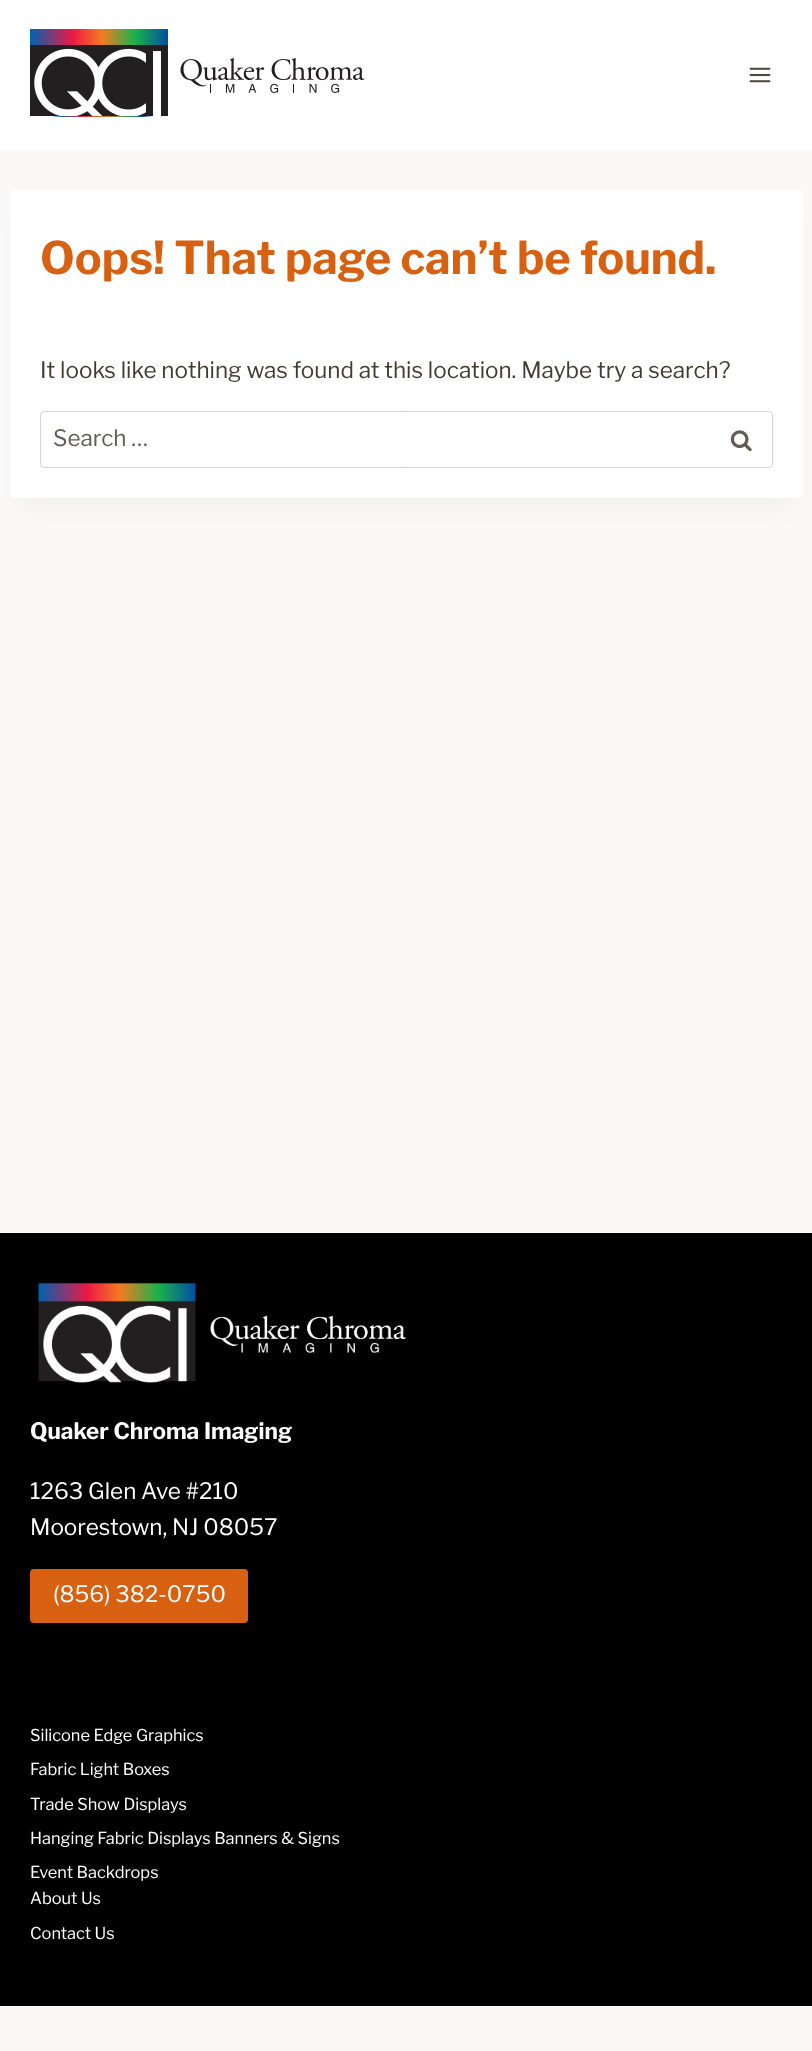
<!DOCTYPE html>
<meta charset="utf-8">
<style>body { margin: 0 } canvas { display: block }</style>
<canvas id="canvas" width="812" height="2051"></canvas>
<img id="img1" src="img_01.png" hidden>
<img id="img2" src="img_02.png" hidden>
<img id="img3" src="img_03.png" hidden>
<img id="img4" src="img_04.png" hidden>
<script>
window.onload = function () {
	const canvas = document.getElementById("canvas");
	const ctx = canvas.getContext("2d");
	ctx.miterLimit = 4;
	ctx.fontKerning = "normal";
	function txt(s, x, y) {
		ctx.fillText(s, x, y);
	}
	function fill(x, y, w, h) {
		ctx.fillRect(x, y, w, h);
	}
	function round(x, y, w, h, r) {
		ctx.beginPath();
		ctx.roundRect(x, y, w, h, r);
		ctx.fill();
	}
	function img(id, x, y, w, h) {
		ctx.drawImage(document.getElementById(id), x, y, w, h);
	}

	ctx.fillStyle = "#FAF9F7";
	fill(0, 0, 812, 2051);
	ctx.fillStyle = "#FFFFFF";
	fill(0, 0, 812, 150);
	img("img1", 30, 29, 335, 88);
	img("img2", 749, 67, 22, 16);
	ctx.fillStyle = "rgba(0, 0, 0, 0.05)";
	ctx.filter = "blur(15.5px)";
	ctx.beginPath();
	ctx.rect(23, 221, 767, 283);
	ctx.fill();
	ctx.filter = "none";
	ctx.fillStyle = "#FFFFFF";
	round(10, 190, 793, 308, 5);
	ctx.beginPath();
	ctx.roundRect(40.5, 411.5, 732, 56, 3.5);
	ctx.strokeStyle = "#CBD5E0";
	ctx.stroke();
	img("img3", 730, 430, 22, 21);
	ctx.fillStyle = "#000000";
	fill(0, 1233, 812, 773);
	img("img4", 38, 1282, 368, 101);
	ctx.fillStyle = "#D86011";
	round(30, 1569, 218, 54, 4);
	ctx.font = "bold 45px Libre Franklin";
	txt("Oops! That page can’t be found.", 40, 274);
	ctx.font = "22.5px Libre Franklin";
	ctx.fillStyle = "#423D33";
	txt("It looks like nothing was found at this location. Maybe try a search?", 40, 378);
	ctx.fillStyle = "#625D52";
	txt("Search …", 53, 446);
	ctx.font = "bold 22.5px Libre Franklin";
	ctx.fillStyle = "#FFFFFF";
	txt("Quaker Chroma Imaging", 30, 1439);
	ctx.font = "22.5px Libre Franklin";
	txt("1263 Glen Ave #210", 30, 1499);
	txt("Moorestown, NJ 08057", 30, 1535);
	txt("(856) 382-0750", 53, 1602);
	ctx.font = "16.4px Libre Franklin";
	txt("Silicone Edge Graphics", 30, 1741);
	txt("Fabric Light Boxes", 30, 1775);
	txt("Trade Show Displays", 30, 1810);
	txt("Hanging Fabric Displays Banners & Signs", 30, 1844);
	txt("Event Backdrops", 30, 1878);
	txt("About Us", 30, 1904);
	txt("Contact Us", 30, 1939);
};
</script>
